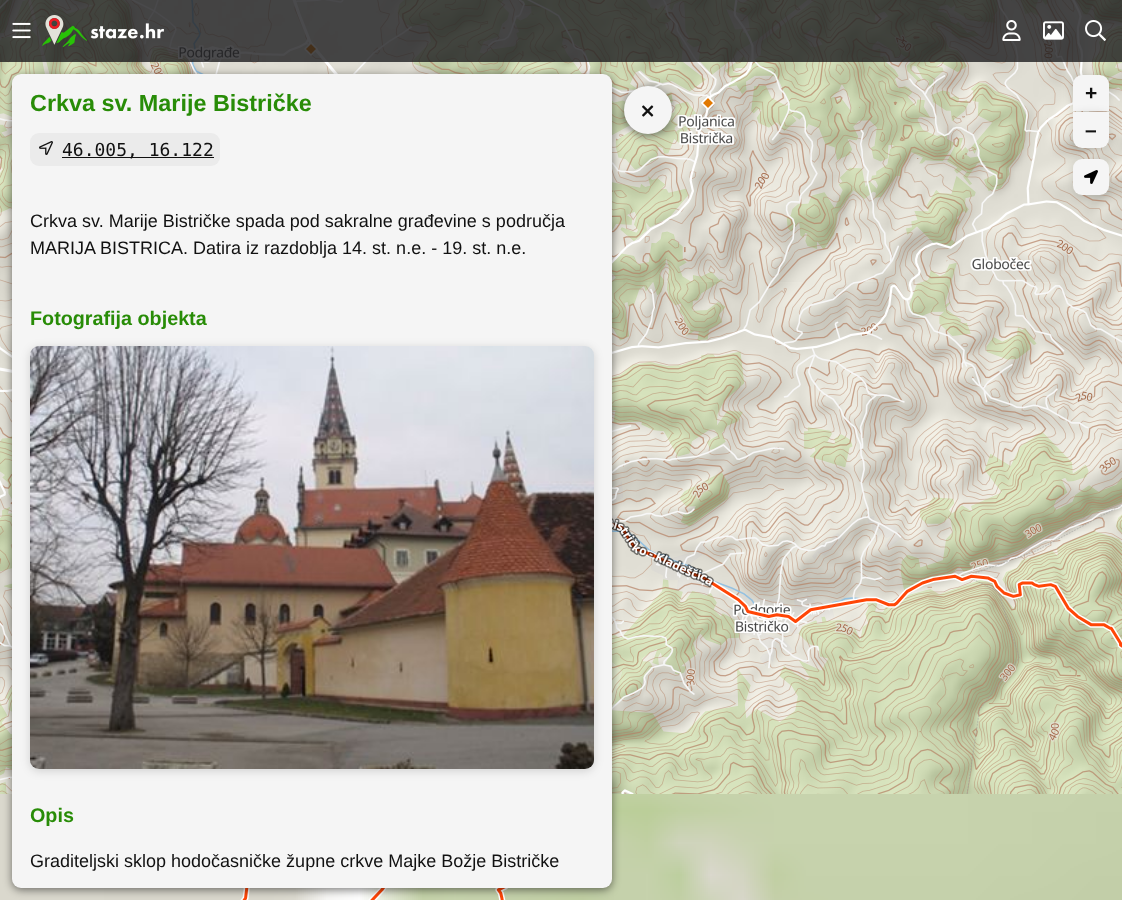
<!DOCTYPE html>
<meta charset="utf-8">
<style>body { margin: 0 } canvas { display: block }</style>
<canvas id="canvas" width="1122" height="900"></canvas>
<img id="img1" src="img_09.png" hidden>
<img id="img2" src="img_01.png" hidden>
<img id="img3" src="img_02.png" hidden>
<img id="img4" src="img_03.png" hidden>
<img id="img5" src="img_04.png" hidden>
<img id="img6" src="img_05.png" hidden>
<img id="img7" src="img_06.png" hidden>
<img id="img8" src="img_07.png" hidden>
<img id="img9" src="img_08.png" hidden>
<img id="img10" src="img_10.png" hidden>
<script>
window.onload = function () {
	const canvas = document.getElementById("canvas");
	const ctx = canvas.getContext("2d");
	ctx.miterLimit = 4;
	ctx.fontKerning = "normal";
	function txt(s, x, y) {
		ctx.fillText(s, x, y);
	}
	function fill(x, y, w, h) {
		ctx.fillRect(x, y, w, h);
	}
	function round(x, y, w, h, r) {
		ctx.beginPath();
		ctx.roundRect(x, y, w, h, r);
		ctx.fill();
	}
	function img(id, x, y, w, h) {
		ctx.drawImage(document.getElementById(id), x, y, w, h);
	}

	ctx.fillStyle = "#FFFFFF";
	fill(0, 0, 1122, 900);
	img("img1", 0, 0, 1122, 900);
	ctx.fillStyle = "rgba(0, 0, 0, 0.15)";
	ctx.filter = "blur(5px)";
	ctx.beginPath();
	ctx.roundRect(1073, 77, 36, 36, 9);
	ctx.fill();
	ctx.filter = "none";
	ctx.fillStyle = "rgba(29, 29, 31, 0.8)";
	fill(0, 0, 1122, 62);
	img("img2", 12, 22, 19, 17);
	img("img3", 42, 15, 122, 32);
	img("img4", 1002, 20, 19, 21);
	img("img5", 1043, 21, 21, 19);
	img("img6", 1085, 20, 21, 21);
	ctx.fillStyle = "rgba(0, 0, 0, 0.5)";
	ctx.filter = "blur(4px)";
	ctx.beginPath();
	ctx.roundRect(12, 76, 600, 814, 9);
	ctx.fill();
	ctx.filter = "none";
	ctx.fillStyle = "#F5F5F5";
	round(12, 74, 600, 814, 9);
	ctx.fillStyle = "#EBEBEB";
	round(30, 133, 190, 33, 9);
	img("img7", 39, 141, 14, 14);
	ctx.fillStyle = "#111111";
	fill(62, 157, 152, 1);
	ctx.fillStyle = "rgba(0, 0, 0, 0.15)";
	ctx.filter = "blur(5px)";
	ctx.beginPath();
	ctx.roundRect(30, 348, 564, 423, 9);
	ctx.fill();
	ctx.filter = "none";
	ctx.fillStyle = "#EBEBEB";
	round(30, 346, 564, 423, 9);
	img("img8", 30, 346, 564, 423);
	ctx.fillStyle = "rgba(0, 0, 0, 0.5)";
	ctx.filter = "blur(4px)";
	ctx.beginPath();
	ctx.roundRect(624, 88, 48, 48, 24);
	ctx.fill();
	ctx.filter = "none";
	ctx.fillStyle = "#F5F5F5";
	ctx.beginPath();
	ctx.arc(648, 110, 24, 0, Math.PI * 2);
	ctx.fill();
	img("img9", 642, 105, 12, 12);
	ctx.beginPath();
	ctx.roundRect(1073, 75, 36, 36, [9, 9, 0, 0]);
	ctx.fill();
	ctx.fillStyle = "rgba(0, 0, 0, 0.15)";
	ctx.filter = "blur(5px)";
	ctx.beginPath();
	ctx.roundRect(1073, 114, 36, 36, 9);
	ctx.fill();
	ctx.filter = "none";
	ctx.fillStyle = "#F5F5F5";
	ctx.beginPath();
	ctx.roundRect(1073, 112, 36, 36, [0, 0, 9, 9]);
	ctx.fill();
	ctx.fillStyle = "rgba(0, 0, 0, 0.15)";
	ctx.filter = "blur(5px)";
	ctx.beginPath();
	ctx.roundRect(1073, 161, 36, 36, 9);
	ctx.fill();
	ctx.filter = "none";
	ctx.fillStyle = "#F5F5F5";
	round(1073, 159, 36, 36, 9);
	img("img10", 1084, 170, 14, 14);
	ctx.font = "bold 23.4px Liberation Sans";
	ctx.fillStyle = "#288C07";
	txt("Crkva sv. Marije Bistričke", 30, 111);
	ctx.font = "18px DejaVu Sans Mono";
	ctx.fillStyle = "#111111";
	txt("46.005, 16.122", 62, 156);
	ctx.font = "18px Liberation Sans";
	txt("Crkva sv. Marije Bistričke spada pod sakralne građevine s područja", 30, 227);
	txt("MARIJA BISTRICA. Datira iz razdoblja 14. st. n.e. - 19. st. n.e.", 30, 254);
	ctx.font = "bold 19.75px Liberation Sans";
	ctx.fillStyle = "#288C07";
	txt("Fotografija objekta", 30, 325);
	txt("Opis", 30, 822);
	ctx.font = "18px Liberation Sans";
	ctx.fillStyle = "#111111";
	txt("Graditeljski sklop hodočasničke župne crkve Majke Božje Bistričke", 30, 867);
	ctx.font = "bold 21px Liberation Sans";
	txt("+", 1085, 100);
	txt("–", 1085, 137);
};
</script>
